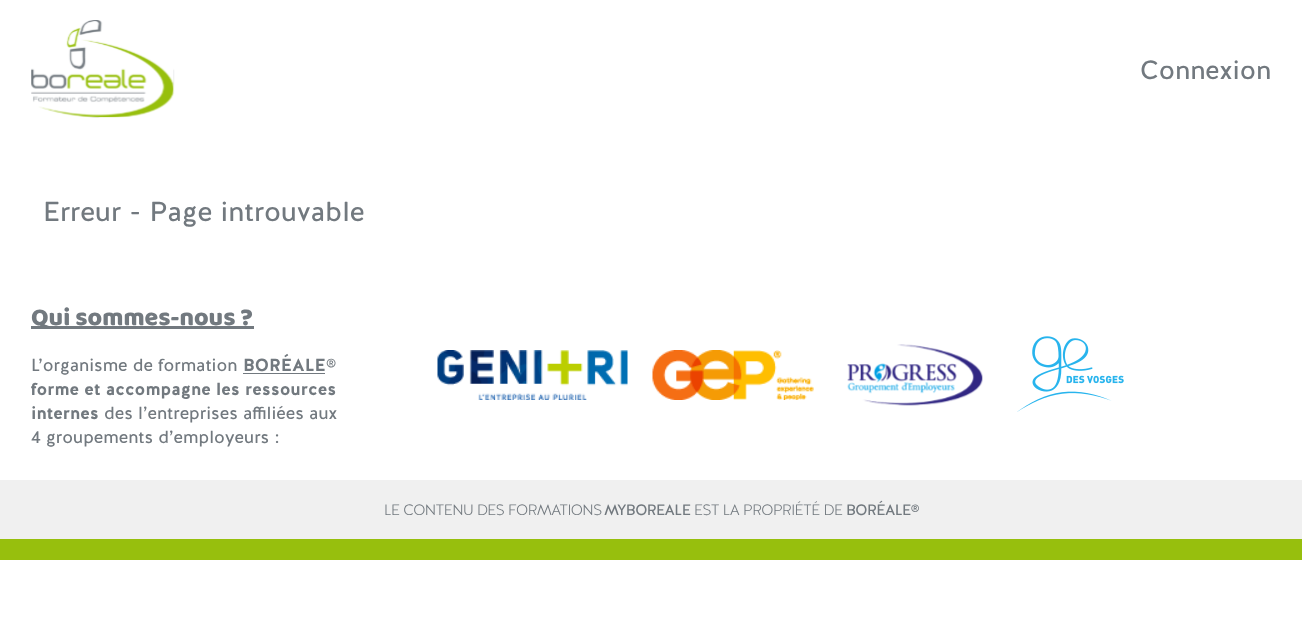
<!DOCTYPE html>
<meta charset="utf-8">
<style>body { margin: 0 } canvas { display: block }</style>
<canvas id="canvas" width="1302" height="634"></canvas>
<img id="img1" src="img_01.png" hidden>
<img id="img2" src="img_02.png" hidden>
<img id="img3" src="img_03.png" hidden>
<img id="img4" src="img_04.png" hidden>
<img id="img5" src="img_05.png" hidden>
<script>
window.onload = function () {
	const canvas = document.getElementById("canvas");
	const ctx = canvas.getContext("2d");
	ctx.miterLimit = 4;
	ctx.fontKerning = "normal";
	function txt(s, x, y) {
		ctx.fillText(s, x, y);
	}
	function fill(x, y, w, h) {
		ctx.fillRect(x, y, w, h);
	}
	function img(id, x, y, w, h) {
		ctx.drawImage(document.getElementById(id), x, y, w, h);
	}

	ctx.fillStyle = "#FFFFFF";
	fill(0, 0, 1302, 634);
	img("img1", 31, 20, 144, 98);
	ctx.fillStyle = "#97BF0D";
	fill(0, 539, 1302, 21);
	ctx.fillStyle = "#72797F";
	fill(31, 326, 223, 3);
	fill(243, 373, 82, 1);
	img("img2", 437, 350, 191, 50);
	img("img3", 652, 350, 162, 50);
	img("img4", 847, 344, 136, 62);
	img("img5", 1017, 336, 107, 76);
	ctx.fillStyle = "#F0F0F0";
	fill(0, 480, 1302, 59);
	ctx.font = "26.25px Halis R";
	ctx.fillStyle = "#72797F";
	txt("Connexion", 1140, 79);
	ctx.font = "27.5px Halis R";
	txt("Erreur - Page introuvable", 43, 221);
	ctx.font = "25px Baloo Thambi";
	txt("Qui sommes-nous ?", 31, 325);
	ctx.font = "17.5px Halis R";
	txt("L’organisme de formation", 31, 371);
	ctx.font = "bold 17.5px Halis R";
	txt("BORÉALE", 243, 371);
	ctx.font = "17.5px Halis R";
	txt("®", 326, 371);
	ctx.font = "bold 17.5px Halis R";
	txt("forme et accompagne les ressources", 31, 395);
	txt("internes", 31, 419);
	ctx.font = "17.5px Halis R";
	txt("des l’entreprises affiliées aux", 104, 419);
	txt("4 groupements d’employeurs :", 31, 443);
	ctx.letterSpacing = "-0.6px";
	ctx.font = "300 15px Halis R";
	txt("LE CONTENU DES FORMATIONS", 384, 515);
	ctx.font = "15px Halis R";
	txt("MYBOREALE", 604, 515);
	ctx.font = "300 15px Halis R";
	txt("EST LA PROPRIÉTÉ DE", 694, 515);
	ctx.font = "15px Halis R";
	txt("BORÉALE®", 846, 515);
};
</script>
